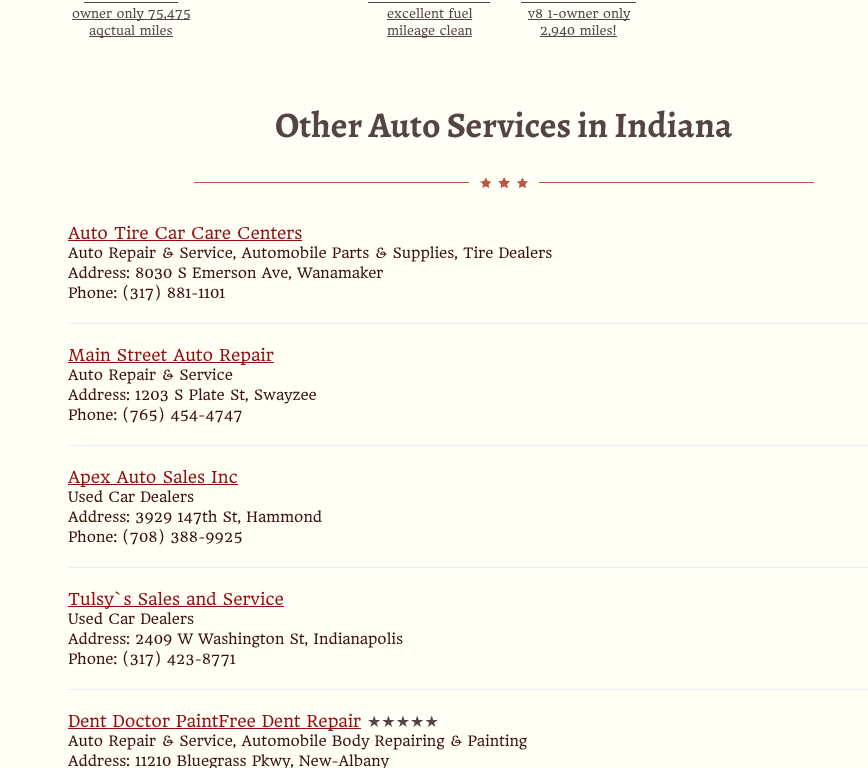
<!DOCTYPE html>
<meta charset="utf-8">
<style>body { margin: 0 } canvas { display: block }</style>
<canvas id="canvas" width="868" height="768"></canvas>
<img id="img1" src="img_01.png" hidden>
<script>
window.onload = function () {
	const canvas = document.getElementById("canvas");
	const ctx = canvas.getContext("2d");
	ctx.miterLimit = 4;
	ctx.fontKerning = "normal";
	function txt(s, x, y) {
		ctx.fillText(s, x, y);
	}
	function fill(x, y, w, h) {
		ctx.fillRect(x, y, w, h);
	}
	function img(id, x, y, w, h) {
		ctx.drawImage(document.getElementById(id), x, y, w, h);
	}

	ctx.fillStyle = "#FFFFF6";
	fill(0, 0, 868, 768);
	ctx.fillStyle = "#554444";
	fill(84, 2, 94, 1);
	fill(72, 19, 118, 1);
	fill(89, 36, 84, 1);
	fill(368, 2, 122, 1);
	fill(387, 19, 85, 1);
	fill(387, 36, 85, 1);
	fill(521, 2, 115, 1);
	fill(528, 19, 102, 1);
	fill(540, 36, 77, 1);
	ctx.fillStyle = "#BC563F";
	fill(194, 182, 620, 1);
	ctx.fillStyle = "#FFFFF6";
	fill(469, 182, 70, 1);
	img("img1", 480, 177, 48, 11);
	ctx.fillStyle = "#930F0F";
	fill(68, 240, 234, 1);
	ctx.fillStyle = "#EEEEEE";
	fill(68, 323, 800, 1);
	ctx.fillStyle = "#FFFFFF";
	fill(68, 324, 800, 1);
	ctx.fillStyle = "#930F0F";
	fill(68, 362, 206, 1);
	ctx.fillStyle = "#EEEEEE";
	fill(68, 445, 800, 1);
	ctx.fillStyle = "#FFFFFF";
	fill(68, 446, 800, 1);
	ctx.fillStyle = "#930F0F";
	fill(68, 484, 170, 1);
	ctx.fillStyle = "#EEEEEE";
	fill(68, 567, 800, 1);
	ctx.fillStyle = "#FFFFFF";
	fill(68, 568, 800, 1);
	ctx.fillStyle = "#930F0F";
	fill(68, 606, 216, 1);
	ctx.fillStyle = "#EEEEEE";
	fill(68, 689, 800, 1);
	ctx.fillStyle = "#FFFFFF";
	fill(68, 690, 800, 1);
	ctx.fillStyle = "#930F0F";
	fill(68, 728, 293, 1);
	ctx.font = "12px HeadlandOne";
	ctx.fillStyle = "#554444";
	txt("owner only 75,475", 72, 18);
	txt("aqctual miles", 89, 35);
	txt("excellent fuel", 387, 18);
	txt("mileage clean", 387, 35);
	txt("v8 1-owner only", 528, 18);
	txt("2,940 miles!", 540, 35);
	ctx.font = "bold 36px Alegreya";
	txt("Other Auto Services in Indiana", 275, 137);
	ctx.font = "16px HeadlandOne";
	ctx.fillStyle = "#930F0F";
	txt("Auto Tire Car Care Centers", 68, 239);
	ctx.font = "14px HeadlandOne";
	ctx.fillStyle = "#3A1109";
	txt("Auto Repair & Service, Automobile Parts & Supplies, Tire Dealers", 68, 258);
	txt("Address: 8030 S Emerson Ave, Wanamaker", 68, 278);
	txt("Phone: (317) 881-1101", 68, 298);
	ctx.font = "16px HeadlandOne";
	ctx.fillStyle = "#930F0F";
	txt("Main Street Auto Repair", 68, 361);
	ctx.font = "14px HeadlandOne";
	ctx.fillStyle = "#3A1109";
	txt("Auto Repair & Service", 68, 380);
	txt("Address: 1203 S Plate St, Swayzee", 68, 400);
	txt("Phone: (765) 454-4747", 68, 420);
	ctx.font = "16px HeadlandOne";
	ctx.fillStyle = "#930F0F";
	txt("Apex Auto Sales Inc", 68, 483);
	ctx.font = "14px HeadlandOne";
	ctx.fillStyle = "#3A1109";
	txt("Used Car Dealers", 68, 502);
	txt("Address: 3929 147th St, Hammond", 68, 522);
	txt("Phone: (708) 388-9925", 68, 542);
	ctx.font = "16px HeadlandOne";
	ctx.fillStyle = "#930F0F";
	txt("Tulsy`s Sales and Service", 68, 605);
	ctx.font = "14px HeadlandOne";
	ctx.fillStyle = "#3A1109";
	txt("Used Car Dealers", 68, 624);
	txt("Address: 2409 W Washington St, Indianapolis", 68, 644);
	txt("Phone: (317) 423-8771", 68, 664);
	ctx.font = "16px HeadlandOne";
	ctx.fillStyle = "#930F0F";
	txt("Dent Doctor PaintFree Dent Repair", 68, 727);
	ctx.font = "16px DejaVu Sans";
	ctx.fillStyle = "#554444";
	txt("★★★★★", 367, 727);
	ctx.font = "14px HeadlandOne";
	ctx.fillStyle = "#3A1109";
	txt("Auto Repair & Service, Automobile Body Repairing & Painting", 68, 746);
	txt("Address: 11210 Bluegrass Pkwy, New-Albany", 68, 766);
};
</script>
